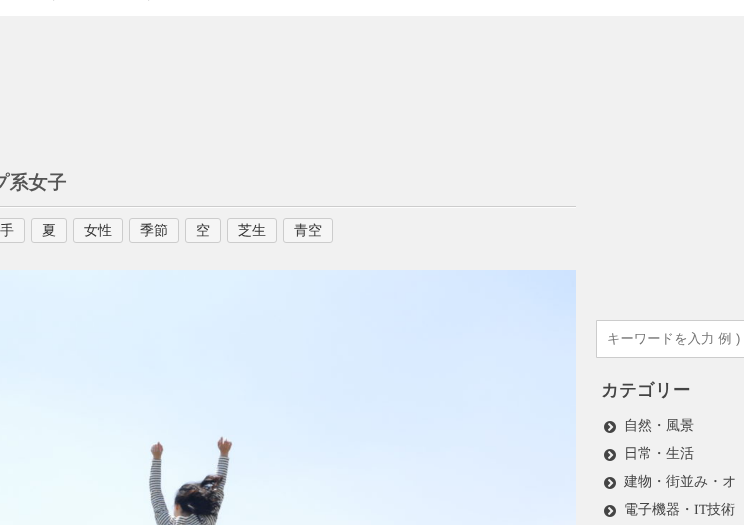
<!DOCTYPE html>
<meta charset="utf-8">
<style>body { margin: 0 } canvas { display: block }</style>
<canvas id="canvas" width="744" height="525"></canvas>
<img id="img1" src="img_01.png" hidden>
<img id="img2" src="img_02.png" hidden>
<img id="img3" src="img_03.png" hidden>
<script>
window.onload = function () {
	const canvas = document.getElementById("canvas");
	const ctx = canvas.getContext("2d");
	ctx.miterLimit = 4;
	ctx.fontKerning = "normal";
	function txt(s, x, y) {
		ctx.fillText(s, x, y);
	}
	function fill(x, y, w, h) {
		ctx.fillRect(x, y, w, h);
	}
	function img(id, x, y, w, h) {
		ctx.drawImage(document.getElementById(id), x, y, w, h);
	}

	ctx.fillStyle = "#FFFFFF";
	fill(0, 0, 744, 525);
	img("img1", 53, 0, 2, 1);
	img("img1", 148, 0, 2, 1);
	ctx.fillStyle = "#F1F1F1";
	fill(0, 16, 744, 509);
	ctx.fillStyle = "#FDFDFD";
	fill(0, 207, 576, 1);
	ctx.fillStyle = "#CCCCCC";
	fill(0, 206, 576, 1);
	ctx.fillStyle = "#F5F5F5";
	ctx.beginPath();
	ctx.roundRect(-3.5, 218.5, 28, 24, 2.5);
	ctx.fill();
	ctx.strokeStyle = "#CCCCCC";
	ctx.stroke();
	ctx.beginPath();
	ctx.roundRect(31.5, 218.5, 35, 24, 2.5);
	ctx.fill();
	ctx.stroke();
	ctx.beginPath();
	ctx.roundRect(73.5, 218.5, 49, 24, 2.5);
	ctx.fill();
	ctx.stroke();
	ctx.beginPath();
	ctx.roundRect(129.5, 218.5, 49, 24, 2.5);
	ctx.fill();
	ctx.stroke();
	ctx.beginPath();
	ctx.roundRect(185.5, 218.5, 35, 24, 2.5);
	ctx.fill();
	ctx.stroke();
	ctx.beginPath();
	ctx.roundRect(227.5, 218.5, 49, 24, 2.5);
	ctx.fill();
	ctx.stroke();
	ctx.beginPath();
	ctx.roundRect(283.5, 218.5, 49, 24, 2.5);
	ctx.fill();
	ctx.stroke();
	img("img2", 0, 270, 576, 255);
	ctx.fillStyle = "#FFFFFF";
	ctx.beginPath();
	ctx.rect(596.5, 320.5, 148, 37);
	ctx.fill();
	ctx.stroke();
	img("img3", 604, 421, 12, 12);
	img("img3", 604, 449, 12, 12);
	img("img3", 604, 477, 12, 12);
	img("img3", 604, 505, 12, 12);
	ctx.font = "bold 19px WenQuanYi Zen Hei";
	ctx.fillStyle = "#555555";
	txt("プ系女子", -10, 189);
	ctx.font = "500 14px WenQuanYi Zen Hei";
	ctx.fillStyle = "#333333";
	txt("手", 0, 235);
	txt("夏", 42, 235);
	txt("女性", 84, 235);
	txt("季節", 140, 235);
	txt("空", 196, 235);
	txt("芝生", 238, 235);
	txt("青空", 294, 235);
	ctx.font = "500 13.25px WenQuanYi Zen Hei";
	ctx.fillStyle = "#757575";
	txt("キーワードを入力 例", 607, 343);
	ctx.font = "13.25px Liberation Sans";
	txt(")", 736, 343);
	ctx.font = "bold 17.5px WenQuanYi Zen Hei";
	ctx.fillStyle = "#444444";
	txt("カテゴリー", 601, 396);
	ctx.font = "500 14px WenQuanYi Zen Hei";
	txt("自然・風景", 624, 430);
	txt("日常・生活", 624, 458);
	txt("建物・街並み・オ", 624, 486);
	txt("電子機器・", 624, 514);
	ctx.font = "14px Liberation Serif";
	txt("IT", 694, 514);
	ctx.font = "500 14px WenQuanYi Zen Hei";
	txt("技術", 707, 514);
};
</script>
